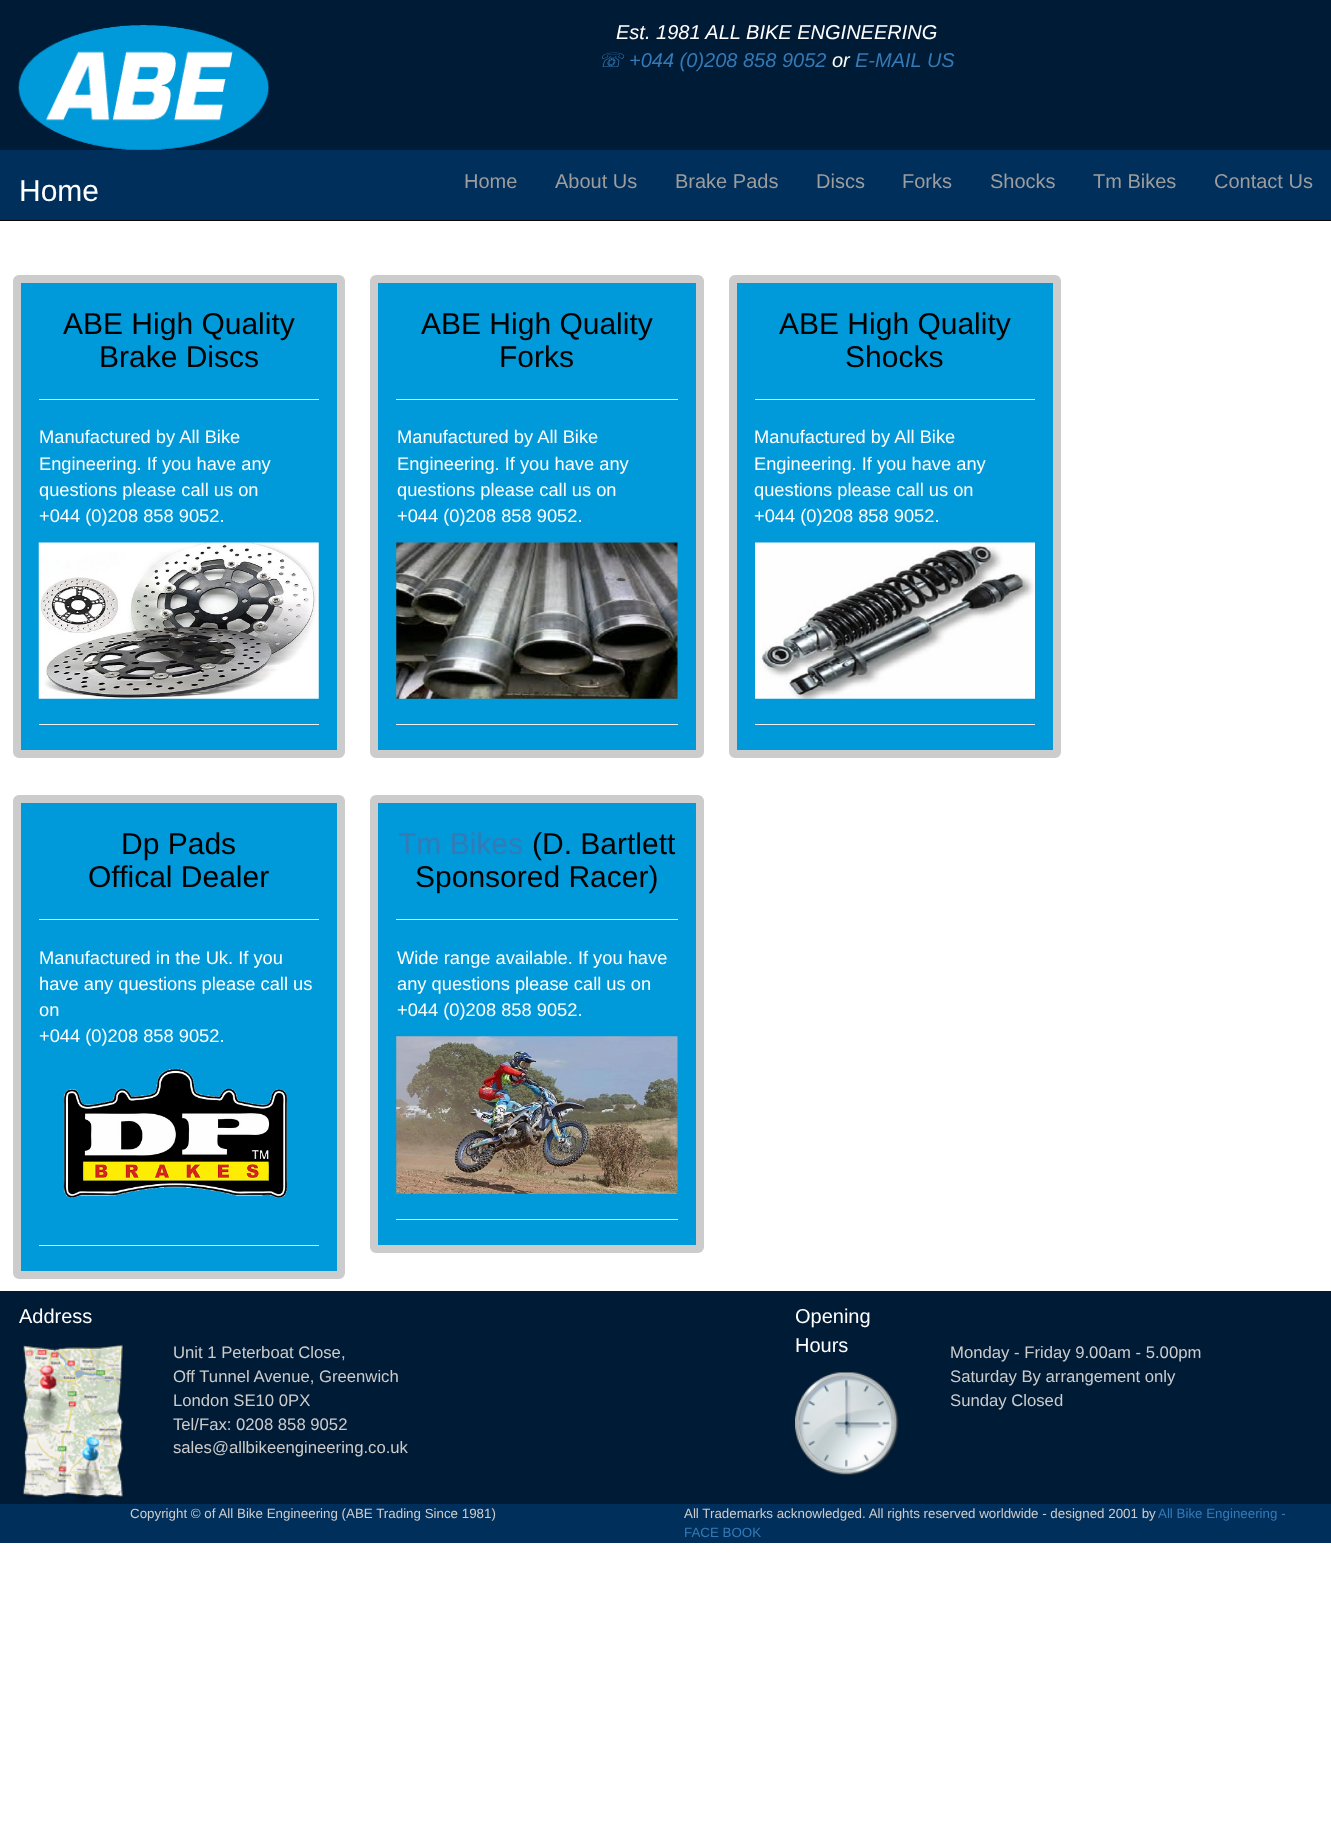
<!DOCTYPE html>
<meta charset="utf-8">
<style>body { margin: 0 } canvas { display: block }</style>
<canvas id="canvas" width="1331" height="1837"></canvas>
<img id="img1" src="img_01.png" hidden>
<img id="img2" src="img_02.png" hidden>
<img id="img3" src="img_03.png" hidden>
<img id="img4" src="img_04.png" hidden>
<img id="img5" src="img_05.png" hidden>
<img id="img6" src="img_06.png" hidden>
<img id="img7" src="img_07.png" hidden>
<img id="img8" src="img_08.png" hidden>
<script>
window.onload = function () {
	const canvas = document.getElementById("canvas");
	const ctx = canvas.getContext("2d");
	ctx.miterLimit = 4;
	ctx.fontKerning = "normal";
	function txt(s, x, y) {
		ctx.fillText(s, x, y);
	}
	function fill(x, y, w, h) {
		ctx.fillRect(x, y, w, h);
	}
	function img(id, x, y, w, h) {
		ctx.drawImage(document.getElementById(id), x, y, w, h);
	}

	ctx.fillStyle = "#FFFFFF";
	fill(0, 0, 1331, 1837);
	ctx.fillStyle = "#080808";
	fill(0, 220, 1331, 1);
	ctx.fillStyle = "#001B35";
	fill(0, 0, 1331, 150);
	img("img1", 18, 25, 251, 125);
	ctx.fillStyle = "#002F5C";
	fill(0, 150, 1331, 70);
	ctx.fillStyle = "#009ADA";
	ctx.beginPath();
	ctx.roundRect(17, 279, 324, 475, 2);
	ctx.fill();
	ctx.strokeStyle = "#CCCCCC";
	ctx.lineWidth = 8;
	ctx.stroke();
	ctx.fillStyle = "#EEEEEE";
	fill(39, 399, 280, 1);
	img("img2", 38, 542, 281, 157);
	fill(39, 724, 280, 1);
	ctx.fillStyle = "#009ADA";
	ctx.beginPath();
	ctx.roundRect(374, 279, 326, 475, 2);
	ctx.fill();
	ctx.stroke();
	ctx.fillStyle = "#EEEEEE";
	fill(396, 399, 282, 1);
	img("img3", 396, 542, 282, 157);
	fill(396, 724, 282, 1);
	ctx.fillStyle = "#009ADA";
	ctx.beginPath();
	ctx.roundRect(733, 279, 324, 475, 2);
	ctx.fill();
	ctx.stroke();
	ctx.fillStyle = "#EEEEEE";
	fill(755, 399, 280, 1);
	img("img4", 755, 542, 280, 157);
	fill(755, 724, 280, 1);
	ctx.fillStyle = "#009ADA";
	ctx.beginPath();
	ctx.roundRect(17, 799, 324, 476, 2);
	ctx.fill();
	ctx.stroke();
	ctx.fillStyle = "#EEEEEE";
	fill(39, 919, 280, 1);
	img("img5", 63, 1068, 225, 130);
	fill(39, 1245, 280, 1);
	ctx.fillStyle = "#009ADA";
	ctx.beginPath();
	ctx.roundRect(374, 799, 326, 450, 2);
	ctx.fill();
	ctx.stroke();
	ctx.fillStyle = "#EEEEEE";
	fill(396, 919, 282, 1);
	img("img6", 396, 1036, 282, 158);
	fill(396, 1219, 282, 1);
	ctx.fillStyle = "#001B35";
	fill(0, 1291, 1331, 213);
	img("img7", 22, 1344, 102, 159);
	img("img8", 795, 1372, 104, 104);
	ctx.fillStyle = "#002F5C";
	fill(0, 1504, 1331, 39);
	ctx.font = "italic 20px Liberation Sans";
	ctx.fillStyle = "#FFFFFF";
	txt("Est. 1981 ALL BIKE ENGINEERING", 616, 39);
	ctx.font = "italic 20px DejaVu Sans";
	ctx.fillStyle = "#337AB7";
	txt("☏", 598, 67);
	ctx.font = "italic 20px Liberation Sans";
	txt("+044 (0)208 858 9052", 629, 67);
	ctx.fillStyle = "#FFFFFF";
	txt("or", 832, 67);
	ctx.fillStyle = "#337AB7";
	txt("E-MAIL US", 855, 67);
	ctx.font = "30px Liberation Sans";
	ctx.fillStyle = "#FFFFFF";
	txt("Home", 19, 201);
	ctx.font = "20px Liberation Sans";
	ctx.fillStyle = "#9D9D9D";
	txt("Home", 464, 188);
	txt("About Us", 555, 188);
	txt("Brake Pads", 675, 188);
	txt("Discs", 816, 188);
	txt("Forks", 902, 188);
	txt("Shocks", 990, 188);
	txt("Tm Bikes", 1093, 188);
	txt("Contact Us", 1214, 188);
	ctx.font = "30px Liberation Sans";
	ctx.fillStyle = "#000000";
	txt("ABE High Quality", 63, 334);
	txt("Brake Discs", 99, 367);
	ctx.font = "18.3px Liberation Sans";
	ctx.fillStyle = "#FFFFFF";
	txt("Manufactured by All Bike", 39, 443);
	txt("Engineering. If you have any", 39, 470);
	txt("questions please call us on", 39, 496);
	txt("+044 (0)208 858 9052.", 39, 522);
	ctx.font = "30px Liberation Sans";
	ctx.fillStyle = "#000000";
	txt("ABE High Quality", 421, 334);
	txt("Forks", 499, 367);
	ctx.font = "18.3px Liberation Sans";
	ctx.fillStyle = "#FFFFFF";
	txt("Manufactured by All Bike", 397, 443);
	txt("Engineering. If you have any", 397, 470);
	txt("questions please call us on", 397, 496);
	txt("+044 (0)208 858 9052.", 397, 522);
	ctx.font = "30px Liberation Sans";
	ctx.fillStyle = "#000000";
	txt("ABE High Quality", 779, 334);
	txt("Shocks", 845, 367);
	ctx.font = "18.3px Liberation Sans";
	ctx.fillStyle = "#FFFFFF";
	txt("Manufactured by All Bike", 754, 443);
	txt("Engineering. If you have any", 754, 470);
	txt("questions please call us on", 754, 496);
	txt("+044 (0)208 858 9052.", 754, 522);
	ctx.font = "30px Liberation Sans";
	ctx.fillStyle = "#000000";
	txt("Dp Pads", 121, 854);
	txt("Offical Dealer", 88, 887);
	ctx.font = "18.3px Liberation Sans";
	ctx.fillStyle = "#FFFFFF";
	txt("Manufactured in the Uk. If you", 39, 964);
	txt("have any questions please call us", 39, 990);
	txt("on", 39, 1016);
	txt("+044 (0)208 858 9052.", 39, 1042);
	ctx.font = "30px Liberation Sans";
	ctx.fillStyle = "#337AB7";
	txt("Tm Bikes", 398, 854);
	ctx.fillStyle = "#000000";
	txt("(D. Bartlett", 532, 854);
	txt("Sponsored Racer)", 415, 887);
	ctx.font = "18.3px Liberation Sans";
	ctx.fillStyle = "#FFFFFF";
	txt("Wide range available. If you have", 397, 964);
	txt("any questions please call us on", 397, 990);
	txt("+044 (0)208 858 9052.", 397, 1016);
	ctx.font = "20px Liberation Sans";
	txt("Address", 19, 1323);
	txt("Opening", 795, 1323);
	txt("Hours", 795, 1352);
	ctx.font = "16.7px Liberation Sans";
	ctx.fillStyle = "#CCCCCC";
	txt("Unit 1 Peterboat Close,", 173, 1358);
	txt("Off Tunnel Avenue, Greenwich", 173, 1382);
	txt("London SE10 0PX", 173, 1406);
	txt("Tel/Fax: 0208 858 9052", 173, 1430);
	txt("sales@allbikeengineering.co.uk", 173, 1453);
	txt("Monday - Friday 9.00am - 5.00pm", 950, 1358);
	txt("Saturday By arrangement only", 950, 1382);
	txt("Sunday Closed", 950, 1406);
	ctx.font = "13.35px Liberation Sans";
	txt("Copyright © of All Bike Engineering (ABE Trading Since 1981)", 130, 1518);
	txt("All Trademarks acknowledged. All rights reserved worldwide - designed 2001 by", 684, 1518);
	ctx.fillStyle = "#337AB7";
	txt("All Bike Engineering -", 1158, 1518);
	txt("FACE BOOK", 684, 1537);
};
</script>
